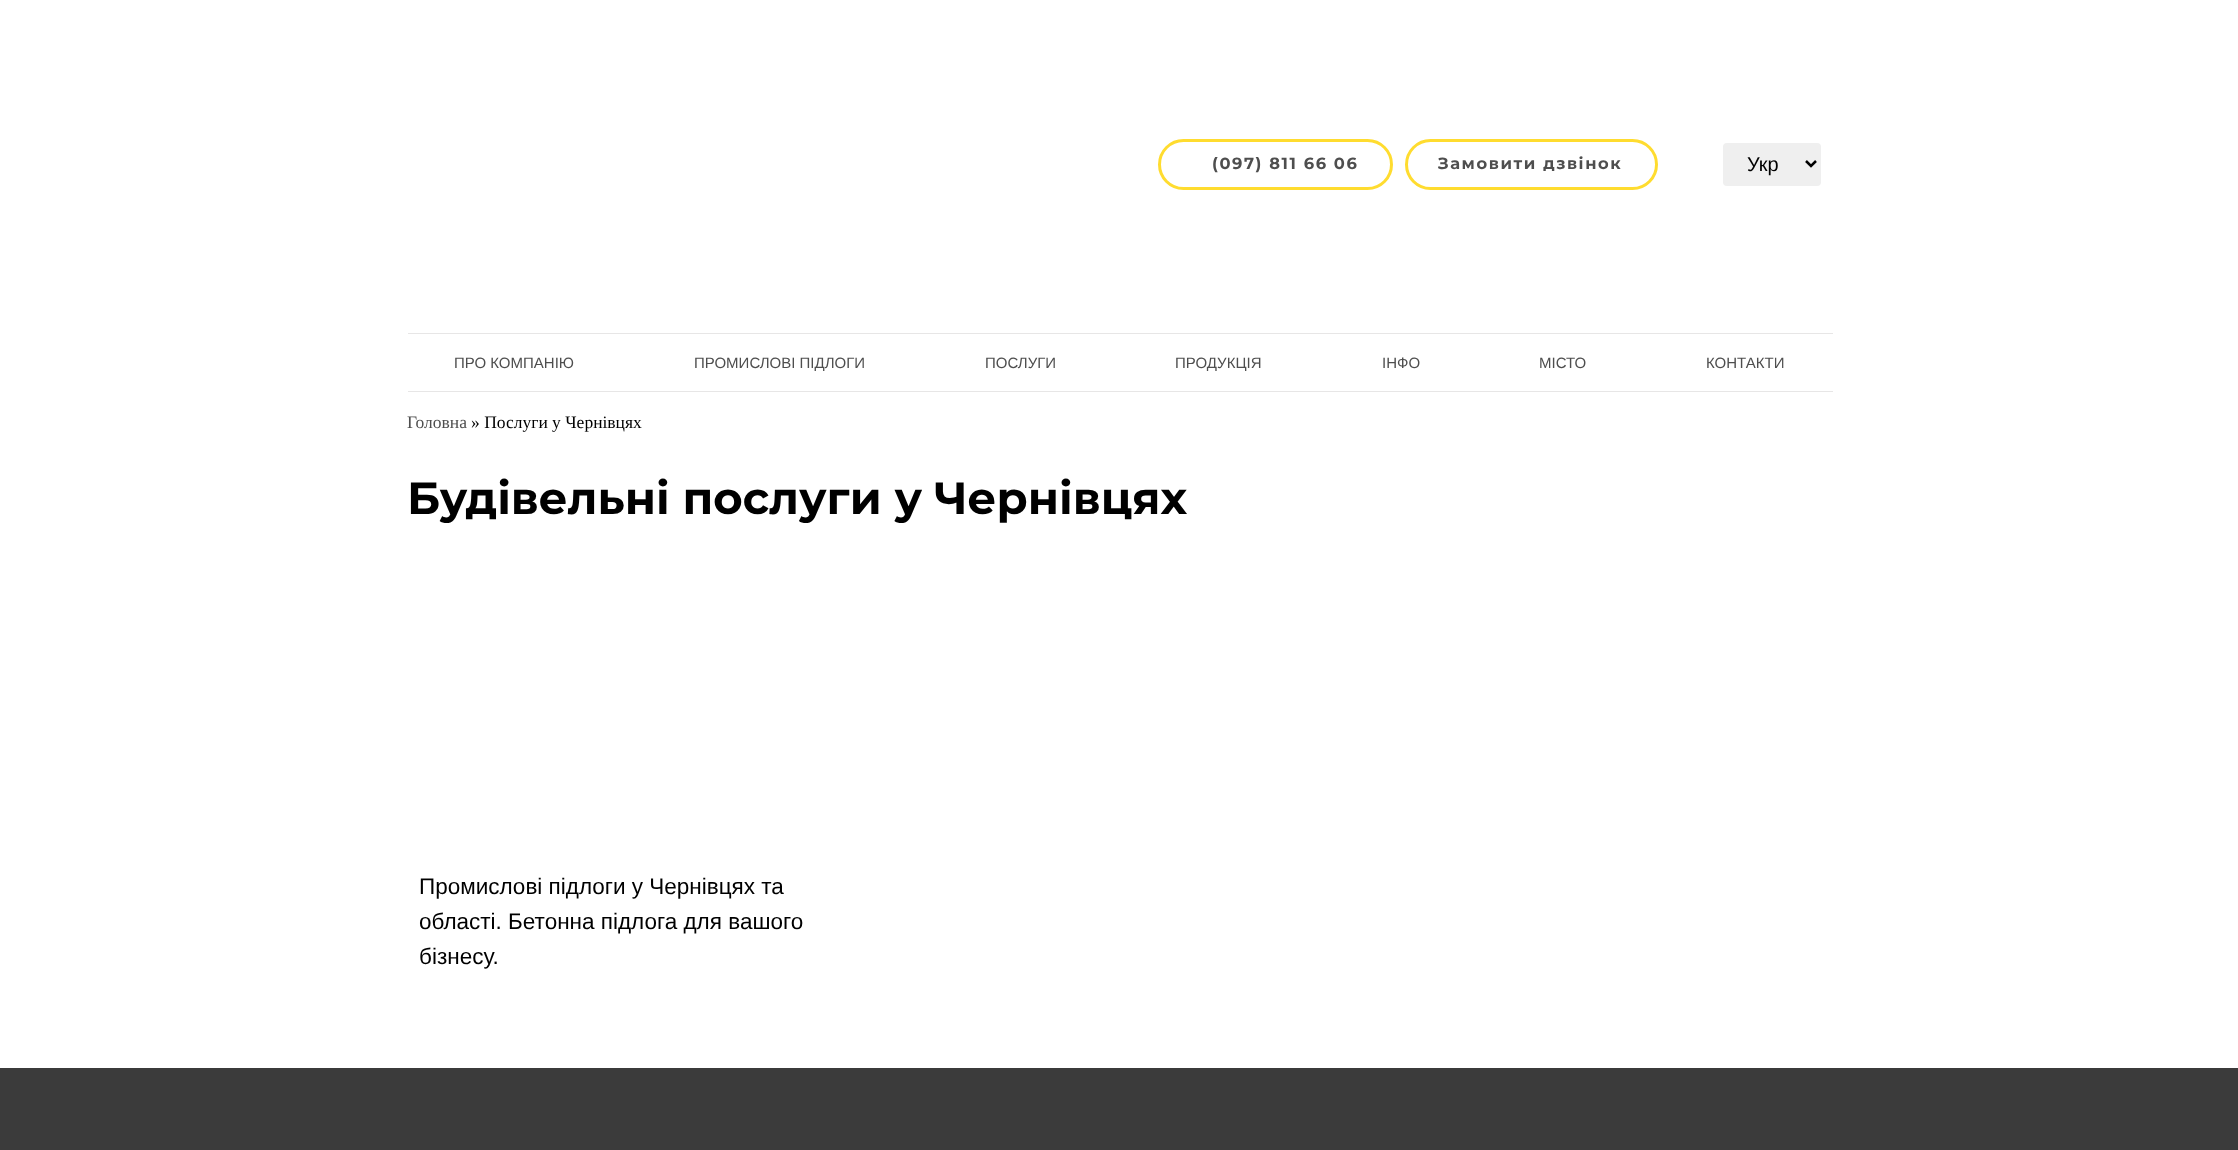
<!DOCTYPE html>
<meta charset="utf-8">
<style>body { margin: 0 } canvas { display: block }</style>
<canvas id="canvas" width="2238" height="1150"></canvas>
<script>
window.onload = function () {
	const canvas = document.getElementById("canvas");
	const ctx = canvas.getContext("2d");
	ctx.miterLimit = 4;
	ctx.fontKerning = "normal";
	function txt(s, x, y) {
		ctx.fillText(s, x, y);
	}
	function fill(x, y, w, h) {
		ctx.fillRect(x, y, w, h);
	}
	function round(x, y, w, h, r) {
		ctx.beginPath();
		ctx.roundRect(x, y, w, h, r);
		ctx.fill();
	}

	ctx.fillStyle = "#FFFFFF";
	fill(0, 0, 2238, 1150);
	ctx.beginPath();
	ctx.roundRect(1159.5, 140.5, 232, 48, 24);
	ctx.strokeStyle = "#FFDC2F";
	ctx.lineWidth = 3;
	ctx.stroke();
	ctx.beginPath();
	ctx.roundRect(1406.5, 140.5, 250, 48, 24);
	ctx.stroke();
	ctx.fillStyle = "#EFEFEF";
	round(1723, 143, 98, 43, 4);
	ctx.beginPath();
	ctx.moveTo(1806, 161);
	ctx.lineTo(1811, 166);
	ctx.lineTo(1816, 161);
	ctx.strokeStyle = "#000000";
	ctx.lineWidth = 2.5;
	ctx.stroke();
	ctx.fillStyle = "#E7E6E6";
	fill(408, 333, 1425, 1);
	fill(408, 391, 1425, 1);
	ctx.fillStyle = "#3B3B3B";
	fill(0, 1068, 2238, 82);
	ctx.letterSpacing = "1.6px";
	ctx.font = "bold 16.25px Montserrat";
	ctx.fillStyle = "#4E4E4E";
	txt("(097) 811 66 06", 1212, 169);
	txt("Замовити дзвінок", 1438, 169);
	ctx.letterSpacing = "0px";
	ctx.font = "20px Liberation Sans";
	ctx.fillStyle = "#000000";
	txt("Укр", 1747, 171);
	ctx.font = "15px Liberation Sans";
	ctx.fillStyle = "#4E4E4E";
	txt("ПРО КОМПАНІЮ", 454, 368);
	txt("ПРОМИСЛОВІ ПІДЛОГИ", 694, 368);
	txt("ПОСЛУГИ", 985, 368);
	txt("ПРОДУКЦІЯ", 1175, 368);
	txt("ІНФО", 1382, 368);
	txt("МІСТО", 1539, 368);
	txt("КОНТАКТИ", 1706, 368);
	ctx.font = "17.5px Liberation Serif";
	txt("Головна", 407, 428);
	ctx.fillStyle = "#000000";
	txt("» Послуги у Чернівцях", 471, 428);
	ctx.font = "bold 45px Montserrat";
	txt("Будівельні послуги у Чернівцях", 407, 514);
	ctx.font = "22.5px Liberation Sans";
	txt("Промислові підлоги у Чернівцях та", 419, 894);
	txt("області. Бетонна підлога для вашого", 419, 929);
	txt("бізнесу.", 419, 964);
};
</script>
